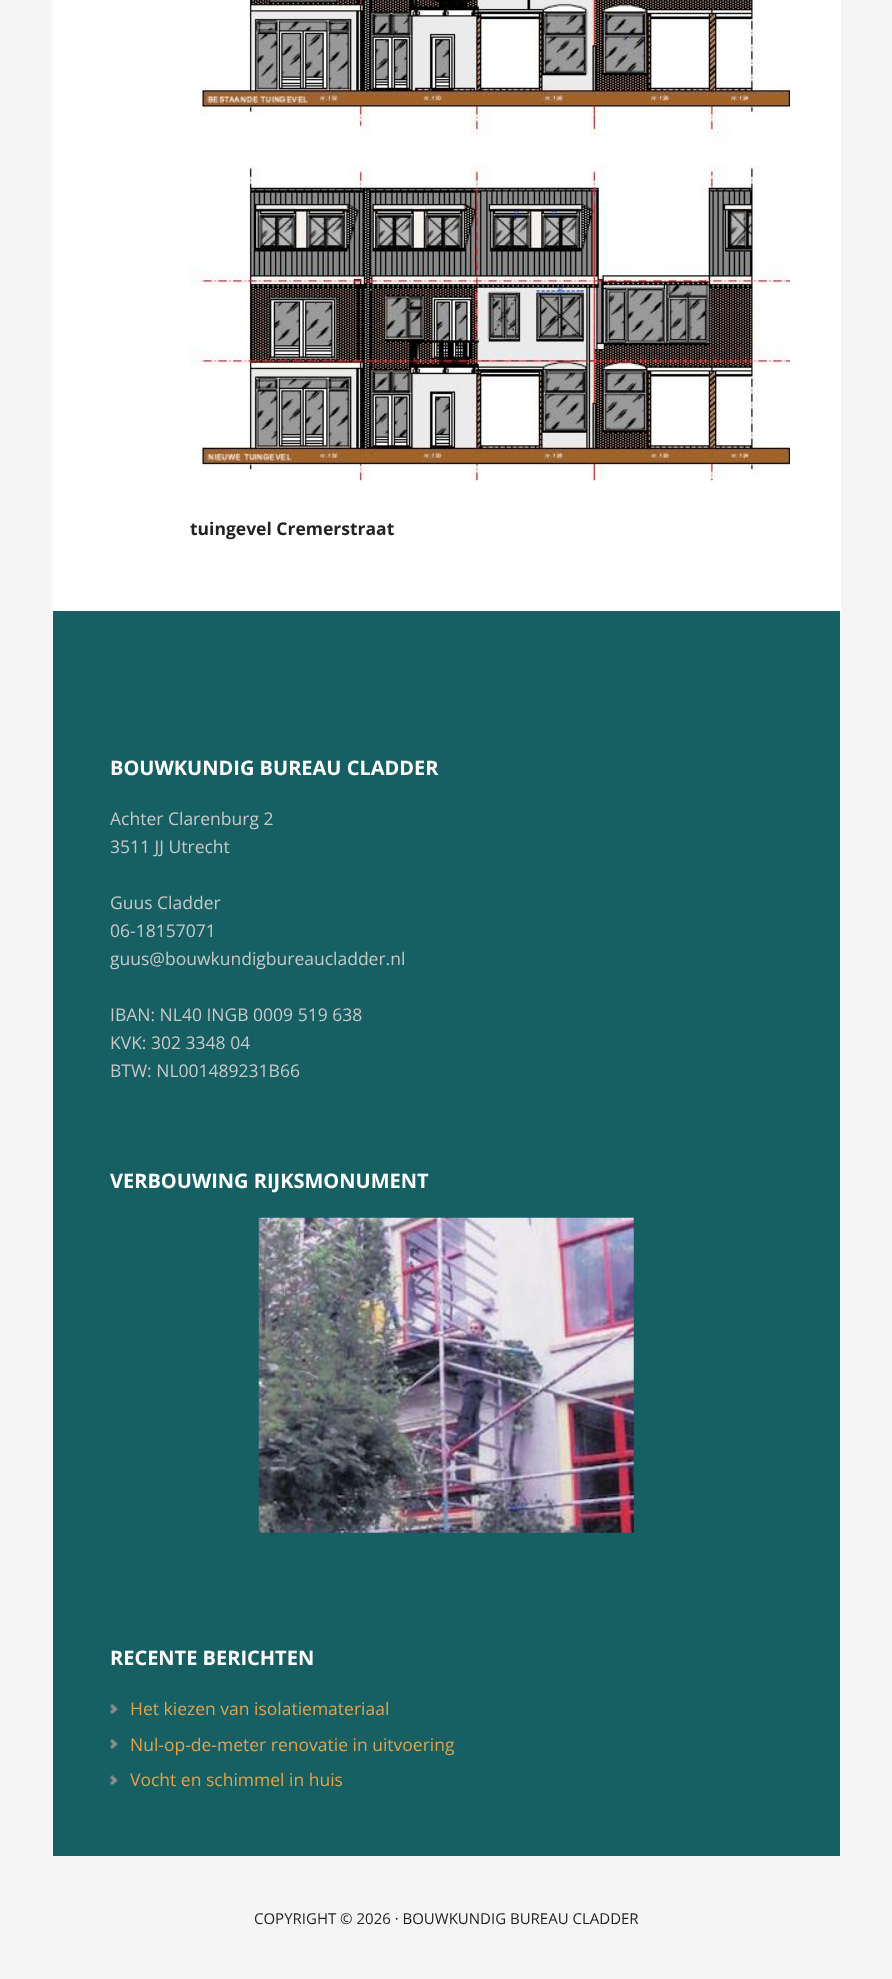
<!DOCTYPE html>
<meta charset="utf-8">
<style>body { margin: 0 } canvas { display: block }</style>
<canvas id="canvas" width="892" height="1979"></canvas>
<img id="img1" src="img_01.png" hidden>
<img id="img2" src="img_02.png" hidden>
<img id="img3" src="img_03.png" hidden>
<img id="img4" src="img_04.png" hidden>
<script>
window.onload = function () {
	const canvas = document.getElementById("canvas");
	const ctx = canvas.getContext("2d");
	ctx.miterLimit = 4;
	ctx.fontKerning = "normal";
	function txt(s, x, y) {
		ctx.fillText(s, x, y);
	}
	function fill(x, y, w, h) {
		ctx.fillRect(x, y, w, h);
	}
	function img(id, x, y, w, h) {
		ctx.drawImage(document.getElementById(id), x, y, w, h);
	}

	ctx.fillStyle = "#F5F5F5";
	fill(0, 0, 892, 1979);
	ctx.strokeStyle = "#FFFFFF";
	ctx.strokeRect(51.5, -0.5, 789, 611);
	ctx.fillStyle = "#FFFFFF";
	fill(53, 0, 787, 610);
	img("img1", 190, 0, 600, 481);
	ctx.fillStyle = "#165F63";
	fill(53, 611, 787, 1245);
	img("img2", 258, 1217, 376, 316);
	img("img3", 110, 1704, 8, 10);
	img("img3", 110, 1739, 8, 10);
	img("img4", 110, 1775, 8, 11);
	ctx.font = "bold 17.5px Open Sans";
	ctx.fillStyle = "#222222";
	txt("tuingevel Cremerstraat", 190, 535);
	ctx.font = "bold 20px Open Sans";
	ctx.fillStyle = "#FFFFFF";
	txt("BOUWKUNDIG BUREAU CLADDER", 110, 775);
	ctx.font = "17.5px Open Sans";
	ctx.fillStyle = "#C8C8C8";
	txt("Achter Clarenburg 2", 110, 825);
	txt("3511 JJ Utrecht", 110, 853);
	txt("Guus Cladder", 110, 909);
	txt("06-18157071", 110, 937);
	txt("guus@bouwkundigbureaucladder.nl", 110, 965);
	txt("IBAN: NL40 INGB 0009 519 638", 110, 1021);
	txt("KVK: 302 3348 04", 110, 1049);
	txt("BTW: NL001489231B66", 110, 1077);
	ctx.font = "bold 20px Open Sans";
	ctx.fillStyle = "#FFFFFF";
	txt("VERBOUWING RIJKSMONUMENT", 110, 1188);
	txt("RECENTE BERICHTEN", 110, 1665);
	ctx.font = "17.5px Open Sans";
	ctx.fillStyle = "#E0A24B";
	txt("Het kiezen van isolatiemateriaal", 130, 1715);
	txt("Nul-op-de-meter renovatie in uitvoering", 130, 1751);
	txt("Vocht en schimmel in huis", 130, 1786);
	ctx.font = "15px Open Sans";
	ctx.fillStyle = "#222222";
	txt("COPYRIGHT © 2026 · BOUWKUNDIG BUREAU CLADDER", 254, 1924);
};
</script>
